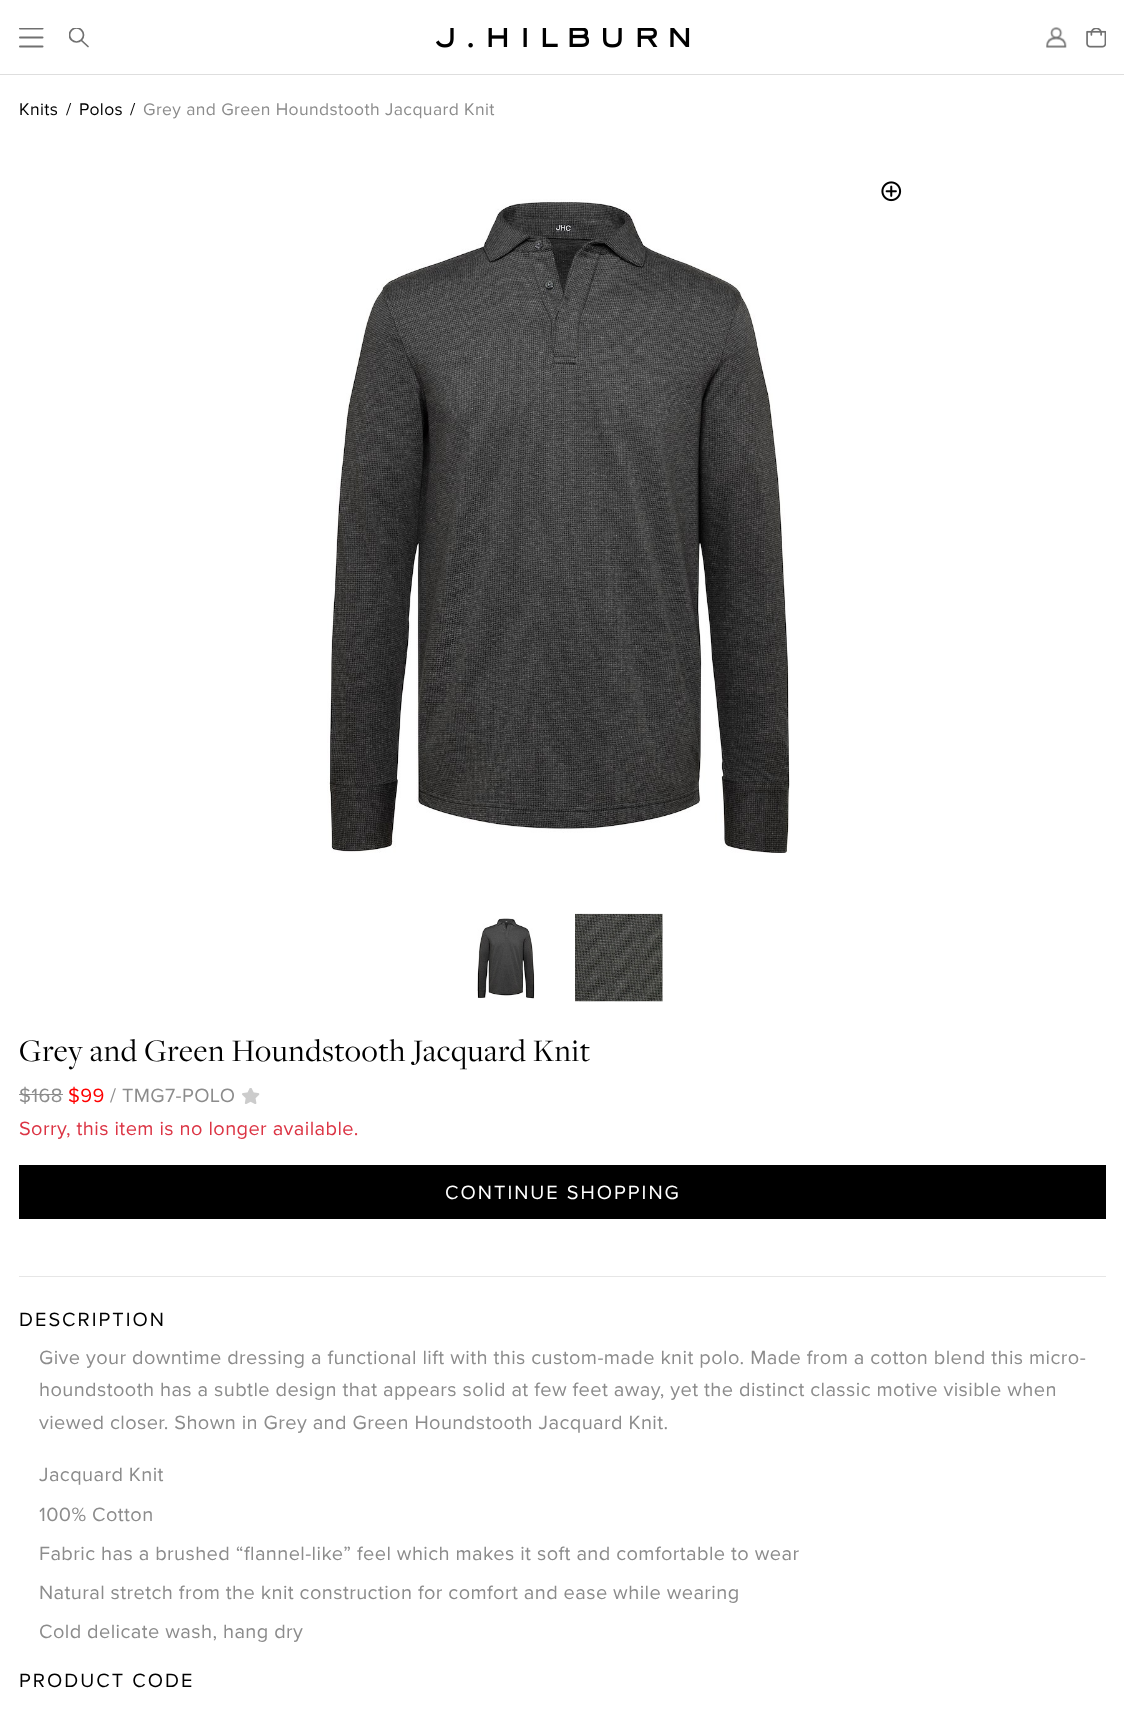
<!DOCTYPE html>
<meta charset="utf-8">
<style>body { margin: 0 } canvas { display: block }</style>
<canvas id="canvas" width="1124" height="1709"></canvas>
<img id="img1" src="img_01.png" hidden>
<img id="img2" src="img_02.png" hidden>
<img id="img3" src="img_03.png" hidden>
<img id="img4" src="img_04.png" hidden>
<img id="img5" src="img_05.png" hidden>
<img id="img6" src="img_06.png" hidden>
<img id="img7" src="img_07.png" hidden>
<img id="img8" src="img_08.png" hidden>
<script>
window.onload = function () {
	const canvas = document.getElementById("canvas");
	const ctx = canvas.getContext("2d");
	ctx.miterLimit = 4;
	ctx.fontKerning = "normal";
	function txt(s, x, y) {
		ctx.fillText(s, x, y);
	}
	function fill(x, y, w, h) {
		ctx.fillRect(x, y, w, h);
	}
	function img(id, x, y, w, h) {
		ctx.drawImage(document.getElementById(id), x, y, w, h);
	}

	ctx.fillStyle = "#FFFFFF";
	fill(0, 0, 1124, 1709);
	ctx.fillStyle = "#DEDEDE";
	fill(0, 74, 1124, 1);
	ctx.save();
	ctx.beginPath();
	ctx.rect(19, 28, 25, 20);
	ctx.clip();
	ctx.beginPath();
	ctx.moveTo(20, 28.5);
	ctx.lineTo(42.5, 28.5);
	ctx.moveTo(20, 37.5);
	ctx.lineTo(42.5, 37.5);
	ctx.moveTo(20, 46.5);
	ctx.lineTo(42.5, 46.5);
	ctx.strokeStyle = "#707070";
	ctx.lineWidth = 2;
	ctx.lineCap = "round";
	ctx.lineJoin = "round";
	ctx.stroke();
	ctx.restore();
	ctx.beginPath();
	ctx.moveTo(81.5, 40.5);
	ctx.lineTo(88, 46.5);
	ctx.strokeStyle = "#707070";
	ctx.lineWidth = 1.7;
	ctx.lineCap = "round";
	ctx.lineJoin = "round";
	ctx.stroke();
	ctx.save();
	ctx.beginPath();
	ctx.rect(69, 28, 20, 20);
	ctx.clip();
	ctx.beginPath();
	ctx.arc(76.5, 35, 7, 0, Math.PI * 2);
	ctx.stroke();
	ctx.restore();
	img("img1", 436, 28, 254, 20);
	img("img2", 1046, 27, 21, 21);
	img("img3", 1086, 28, 20, 20);
	img("img4", 327, 199, 463, 654);
	img("img5", 881, 181, 21, 21);
	img("img6", 477, 918, 58, 81);
	img("img7", 575, 913, 88, 89);
	ctx.fillStyle = "#8C8C8C";
	fill(19, 1094, 44, 1);
	img("img8", 242, 1088, 18, 16);
	ctx.fillStyle = "#000000";
	fill(19, 1165, 1087, 54);
	ctx.fillStyle = "#E6E6E6";
	fill(19, 1276, 1087, 1);
	ctx.letterSpacing = "0.4px";
	ctx.font = "17.5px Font";
	ctx.fillStyle = "#000000";
	txt("Knits", 19, 115);
	txt("/", 66, 115);
	txt("Polos", 79, 115);
	txt("/", 130, 115);
	ctx.fillStyle = "#8C8C8C";
	txt("Grey and Green Houndstooth Jacquard Knit", 143, 115);
	ctx.letterSpacing = "0.65px";
	ctx.font = "32.5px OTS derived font";
	ctx.fillStyle = "#000000";
	txt("Grey and Green Houndstooth Jacquard Knit", 19, 1061);
	ctx.letterSpacing = "0.4px";
	ctx.font = "20px Font";
	ctx.fillStyle = "#8C8C8C";
	txt("$168", 19, 1102);
	ctx.fillStyle = "#FF0000";
	txt("$99", 68, 1102);
	ctx.fillStyle = "#8C8C8C";
	txt("/ TMG7-POLO", 110, 1102);
	ctx.fillStyle = "#DC3545";
	txt("Sorry, this item is no longer available.", 19, 1135);
	ctx.letterSpacing = "2px";
	ctx.fillStyle = "#FFFFFF";
	txt("CONTINUE SHOPPING", 445, 1199);
	ctx.fillStyle = "#000000";
	txt("DESCRIPTION", 19, 1326);
	ctx.letterSpacing = "0.4px";
	ctx.fillStyle = "#8C8C8C";
	txt("Give your downtime dressing a functional lift with this custom-made knit polo. Made from a cotton blend this micro-", 39, 1364);
	txt("houndstooth has a subtle design that appears solid at few feet away, yet the distinct classic motive visible when", 39, 1396);
	txt("viewed closer. Shown in Grey and Green Houndstooth Jacquard Knit.", 39, 1429);
	txt("Jacquard Knit", 39, 1481);
	txt("100% Cotton", 39, 1521);
	txt("Fabric has a brushed “flannel-like” feel which makes it soft and comfortable to wear", 39, 1560);
	txt("Natural stretch from the knit construction for comfort and ease while wearing", 39, 1599);
	txt("Cold delicate wash, hang dry", 39, 1638);
	ctx.letterSpacing = "2px";
	ctx.fillStyle = "#000000";
	txt("PRODUCT CODE", 19, 1687);
};
</script>
